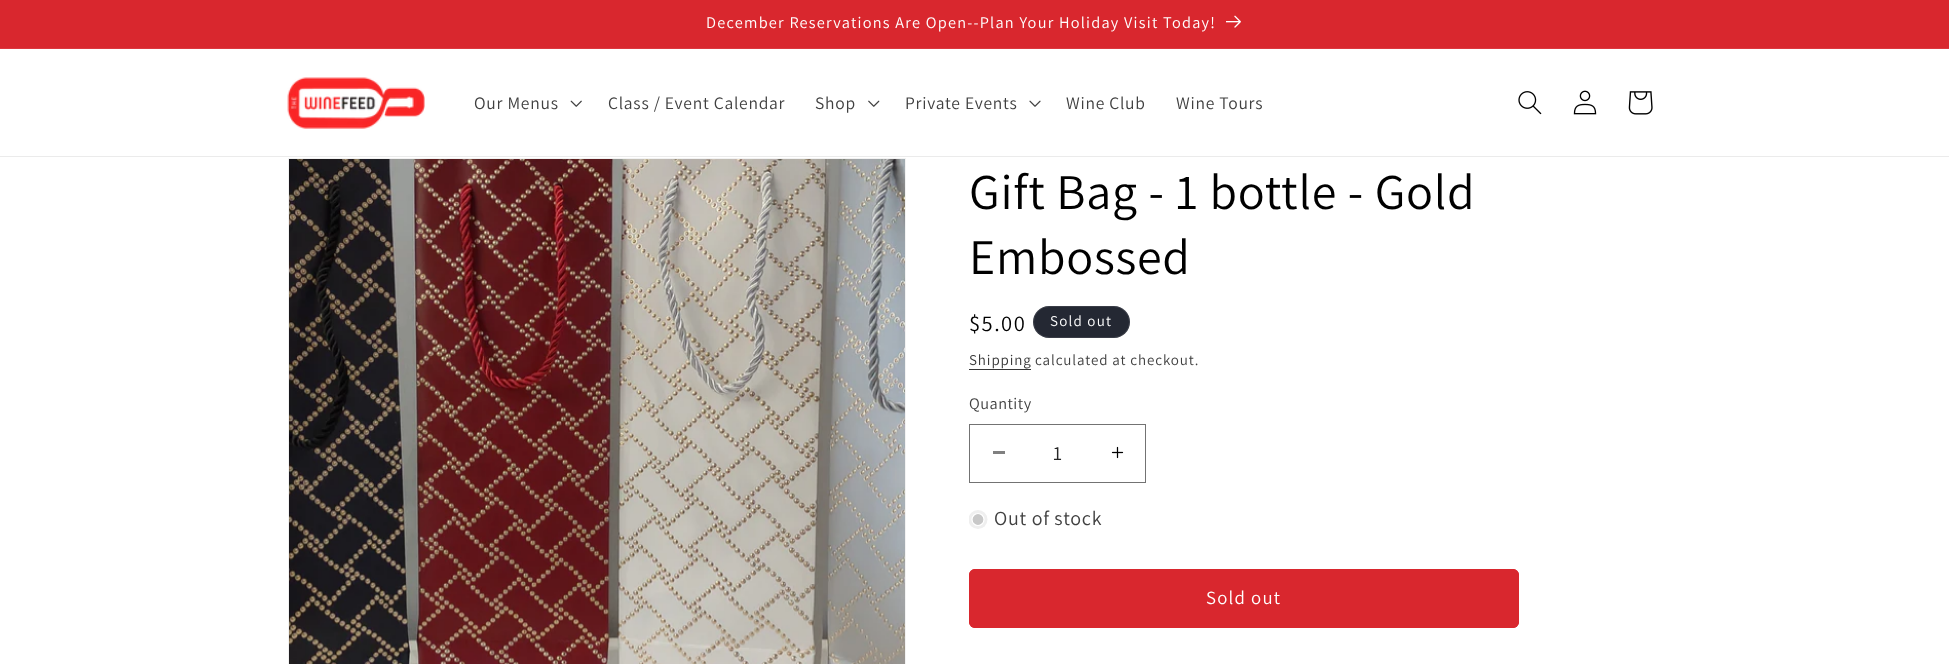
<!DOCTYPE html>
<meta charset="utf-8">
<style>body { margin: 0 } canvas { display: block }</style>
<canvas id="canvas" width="1949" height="664"></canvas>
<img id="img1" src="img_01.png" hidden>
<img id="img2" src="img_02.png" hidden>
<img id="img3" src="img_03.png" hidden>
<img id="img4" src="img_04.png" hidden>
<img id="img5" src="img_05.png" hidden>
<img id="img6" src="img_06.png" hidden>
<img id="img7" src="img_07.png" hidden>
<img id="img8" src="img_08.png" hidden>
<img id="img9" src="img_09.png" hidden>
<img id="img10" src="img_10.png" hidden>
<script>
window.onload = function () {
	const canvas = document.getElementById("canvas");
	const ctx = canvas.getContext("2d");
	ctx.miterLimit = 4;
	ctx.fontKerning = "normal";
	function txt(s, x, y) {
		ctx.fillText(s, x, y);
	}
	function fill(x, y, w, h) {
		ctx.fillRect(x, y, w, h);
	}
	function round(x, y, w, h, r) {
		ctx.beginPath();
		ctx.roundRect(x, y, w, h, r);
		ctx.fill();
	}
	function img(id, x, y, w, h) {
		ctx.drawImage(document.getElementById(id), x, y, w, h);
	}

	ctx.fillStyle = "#FFFFFF";
	fill(0, 0, 1949, 664);
	ctx.fillStyle = "#D9272E";
	fill(0, 0, 1949, 48);
	ctx.fillStyle = "#DC383F";
	fill(0, 48, 1949, 1);
	img("img1", 1226, 15, 15, 13);
	ctx.fillStyle = "#EBEBEB";
	fill(0, 156, 1949, 1);
	img("img2", 287, 77, 138, 52);
	img("img3", 570, 100, 12, 7);
	img("img4", 868, 100, 12, 7);
	img("img5", 1029, 100, 12, 7);
	img("img6", 1518, 91, 24, 24);
	img("img7", 1573, 90, 24, 25);
	img("img8", 1628, 91, 25, 24);
	ctx.strokeStyle = "#F2F2F2";
	ctx.strokeRect(288.5, 158.5, 617, 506);
	img("img9", 289, 159, 616, 505);
	ctx.fillStyle = "#242833";
	round(1033, 306, 97, 32, 16);
	ctx.beginPath();
	ctx.roundRect(1033.5, 306.5, 96, 31, 15.5);
	ctx.strokeStyle = "rgba(255, 255, 255, 0.1)";
	ctx.stroke();
	ctx.fillStyle = "#363636";
	fill(969, 369, 62, 1);
	ctx.fillStyle = "#808080";
	fill(993, 451, 12, 3);
	img("img10", 1111, 446, 13, 13);
	ctx.strokeStyle = "#737373";
	ctx.strokeRect(969.5, 424.5, 176, 58);
	ctx.save();
	ctx.beginPath();
	ctx.rect(969, 510, 19, 19);
	ctx.clip();
	ctx.fillStyle = "#EFEFEF";
	ctx.beginPath();
	ctx.arc(978, 519.5, 9.5, 0, Math.PI * 2);
	ctx.fill();
	ctx.restore();
	ctx.fillStyle = "#C8C8C8";
	ctx.beginPath();
	ctx.arc(978, 519.5, 6, 0, Math.PI * 2);
	ctx.fill();
	ctx.strokeStyle = "#FFFFFF";
	ctx.lineWidth = 1.2;
	ctx.stroke();
	ctx.fillStyle = "#D9272E";
	round(969, 569, 550, 59, 6);
	ctx.beginPath();
	ctx.roundRect(969.5, 569.5, 549, 58, 5.5);
	ctx.strokeStyle = "#D9272E";
	ctx.lineWidth = 1;
	ctx.stroke();
	ctx.letterSpacing = "1.25px";
	ctx.font = "16.25px Assistant";
	ctx.fillStyle = "#FFFFFF";
	txt("December Reservations Are Open--Plan Your Holiday Visit Today!", 706, 28);
	ctx.letterSpacing = "0.75px";
	ctx.font = "17.5px Assistant";
	ctx.fillStyle = "#404040";
	txt("Our Menus", 474, 109);
	txt("Class / Event Calendar", 608, 109);
	txt("Shop", 815, 109);
	txt("Private Events", 905, 109);
	txt("Wine Club", 1066, 109);
	txt("Wine Tours", 1176, 109);
	ctx.font = "50px Assistant";
	ctx.fillStyle = "#000000";
	txt("Gift Bag - 1 bottle - Gold", 969, 209);
	txt("Embossed", 969, 274);
	ctx.letterSpacing = "1.5px";
	ctx.font = "22.5px Assistant";
	txt("$5.00", 969, 331);
	ctx.letterSpacing = "1.25px";
	ctx.font = "15px Assistant";
	ctx.fillStyle = "#FFFFFF";
	txt("Sold out", 1050, 326);
	ctx.letterSpacing = "0.9px";
	ctx.fillStyle = "#363636";
	txt("Shipping", 969, 365);
	ctx.fillStyle = "#404040";
	txt("calculated at checkout.", 1035, 365);
	ctx.letterSpacing = "0.5px";
	ctx.font = "16.25px Assistant";
	txt("Quantity", 969, 409);
	ctx.letterSpacing = "0px";
	ctx.font = "20px Assistant";
	ctx.fillStyle = "#262626";
	txt("1", 1053, 460);
	ctx.letterSpacing = "0.75px";
	ctx.fillStyle = "#404040";
	txt("Out of stock", 994, 525);
	ctx.letterSpacing = "1.25px";
	ctx.font = "18.75px Assistant";
	ctx.fillStyle = "#FFFFFF";
	txt("Sold out", 1206, 604);
};
</script>
